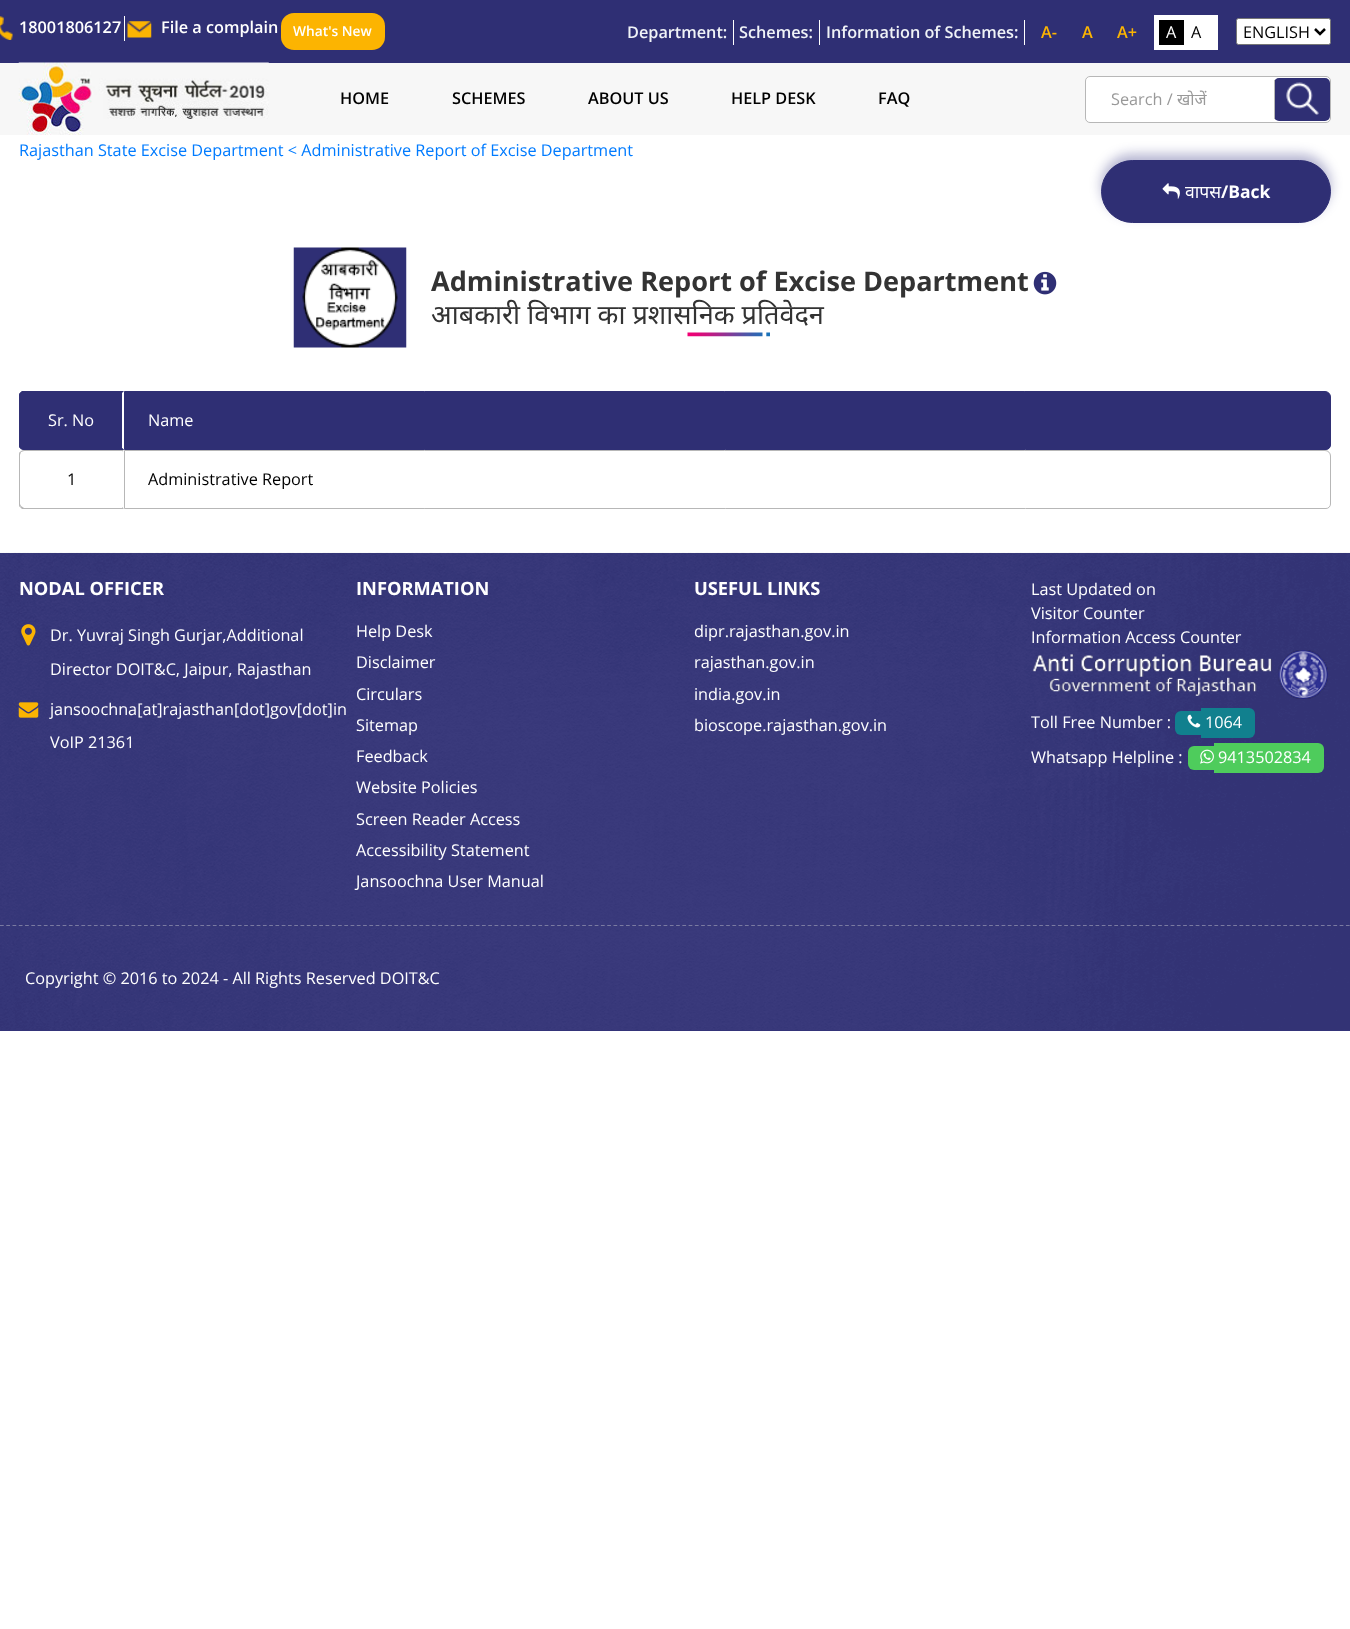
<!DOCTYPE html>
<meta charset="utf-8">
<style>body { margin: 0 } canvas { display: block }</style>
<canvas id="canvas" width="1350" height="1629"></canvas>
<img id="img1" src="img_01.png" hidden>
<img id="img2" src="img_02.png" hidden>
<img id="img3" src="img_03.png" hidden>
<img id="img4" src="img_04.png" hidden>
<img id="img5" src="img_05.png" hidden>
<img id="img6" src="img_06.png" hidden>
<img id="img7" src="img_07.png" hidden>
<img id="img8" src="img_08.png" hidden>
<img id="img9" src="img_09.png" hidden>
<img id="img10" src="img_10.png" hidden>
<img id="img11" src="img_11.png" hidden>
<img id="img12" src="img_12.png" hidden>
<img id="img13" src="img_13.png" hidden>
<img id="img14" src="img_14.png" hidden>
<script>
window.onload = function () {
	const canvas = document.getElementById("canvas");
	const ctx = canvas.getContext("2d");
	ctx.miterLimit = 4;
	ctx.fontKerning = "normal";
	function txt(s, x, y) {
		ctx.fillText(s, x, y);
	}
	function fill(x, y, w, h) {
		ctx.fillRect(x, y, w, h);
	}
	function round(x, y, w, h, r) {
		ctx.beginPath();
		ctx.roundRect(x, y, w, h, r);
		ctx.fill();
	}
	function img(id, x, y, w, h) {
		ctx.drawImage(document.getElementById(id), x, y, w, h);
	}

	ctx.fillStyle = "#FFFFFF";
	fill(0, 0, 1350, 1629);
	ctx.fillStyle = "#2F2F74";
	fill(0, 0, 1350, 63);
	img("img1", 0, 16, 13, 24);
	ctx.fillStyle = "#FFFFFF";
	fill(124, 16, 1, 25);
	img("img2", 127, 21, 25, 17);
	ctx.fillStyle = "#FCB401";
	round(281, 13, 104, 37, 13);
	ctx.fillStyle = "#FFFFFF";
	fill(733, 20, 1, 25);
	fill(819, 20, 1, 25);
	fill(1024, 20, 1, 25);
	fill(1154, 15, 64, 35);
	ctx.fillStyle = "#000000";
	fill(1159, 20, 25, 25);
	ctx.fillStyle = "#FFFFFF";
	ctx.beginPath();
	ctx.roundRect(1236.5, 18.5, 94, 26, 2);
	ctx.fill();
	ctx.strokeStyle = "#767676";
	ctx.stroke();
	ctx.beginPath();
	ctx.moveTo(1315, 29);
	ctx.lineTo(1320, 34);
	ctx.lineTo(1325, 29);
	ctx.strokeStyle = "#000000";
	ctx.lineWidth = 2.5;
	ctx.stroke();
	ctx.fillStyle = "#F7F7F7";
	fill(0, 63, 1350, 72);
	img("img3", 18, 62, 251, 73);
	ctx.fillStyle = "#FFFFFF";
	ctx.beginPath();
	ctx.roundRect(1085.5, 76.5, 245, 46, 4.5);
	ctx.fill();
	ctx.strokeStyle = "#B7B7B7";
	ctx.lineWidth = 1;
	ctx.stroke();
	ctx.fillStyle = "#2F2F74";
	round(1274, 78, 56, 43, 5);
	img("img4", 1286, 82, 33, 33);
	ctx.fillStyle = "#B7B7B7";
	fill(1274, 80, 1, 39);
	ctx.fillStyle = "rgba(9, 10, 102, 0.3)";
	ctx.filter = "blur(6px)";
	ctx.beginPath();
	ctx.roundRect(1101, 154, 230, 62, 31);
	ctx.fill();
	ctx.filter = "none";
	ctx.fillStyle = "#2F2F74";
	ctx.beginPath();
	ctx.roundRect(1101.5, 160.5, 229, 62, 31);
	ctx.fill();
	ctx.strokeStyle = "#2F2F74";
	ctx.stroke();
	img("img5", 1162, 183, 18, 16);
	img("img6", 293, 247, 114, 101);
	img("img7", 687, 332, 83, 5);
	img("img8", 1033, 271, 24, 24);
	ctx.beginPath();
	ctx.roundRect(19, 391, 105, 59, [5, 0, 0, 5]);
	ctx.fill();
	ctx.beginPath();
	ctx.moveTo(24, 392);
	ctx.bezierCurveTo(23, 392, 22, 393, 21, 394);
	ctx.lineTo(20, 393);
	ctx.lineTo(22, 391);
	ctx.lineTo(124, 391);
	ctx.lineTo(122, 393);
	ctx.lineTo(122, 392);
	ctx.closePath();
	ctx.fill();
	ctx.fillStyle = "#FFFFFF";
	ctx.beginPath();
	ctx.moveTo(124, 391);
	ctx.lineTo(122, 393);
	ctx.lineTo(122, 448);
	ctx.lineTo(124, 450);
	ctx.closePath();
	ctx.fill();
	ctx.fillStyle = "#2F2F74";
	ctx.beginPath();
	ctx.moveTo(124, 450);
	ctx.lineTo(122, 448);
	ctx.lineTo(122, 449);
	ctx.lineTo(24, 449);
	ctx.lineTo(21, 448);
	ctx.lineTo(20, 448);
	ctx.bezierCurveTo(21, 449, 22, 450, 24, 450);
	ctx.closePath();
	ctx.fill();
	ctx.beginPath();
	ctx.moveTo(20, 448);
	ctx.bezierCurveTo(19, 448, 19, 446, 19, 445);
	ctx.lineTo(19, 396);
	ctx.bezierCurveTo(19, 395, 19, 393, 20, 393);
	ctx.lineTo(21, 394);
	ctx.lineTo(20, 396);
	ctx.lineTo(20, 445);
	ctx.lineTo(21, 448);
	ctx.closePath();
	ctx.fill();
	ctx.beginPath();
	ctx.roundRect(124.5, 391.5, 1206, 58, [0, 5.5, 4.5, 0]);
	ctx.fill();
	ctx.stroke();
	ctx.fillStyle = "#B7B7B7";
	ctx.beginPath();
	ctx.moveTo(24, 450);
	ctx.bezierCurveTo(22, 450, 21, 451, 20, 452);
	ctx.lineTo(21, 452);
	ctx.lineTo(24, 451);
	ctx.lineTo(122, 451);
	ctx.lineTo(122, 452);
	ctx.lineTo(124, 450);
	ctx.closePath();
	ctx.fill();
	ctx.fillStyle = "#FFFFFF";
	ctx.beginPath();
	ctx.moveTo(124, 450);
	ctx.lineTo(122, 452);
	ctx.lineTo(122, 507);
	ctx.lineTo(124, 509);
	ctx.closePath();
	ctx.fill();
	ctx.fillStyle = "#B7B7B7";
	ctx.beginPath();
	ctx.moveTo(124, 509);
	ctx.lineTo(22, 509);
	ctx.lineTo(20, 507);
	ctx.lineTo(21, 506);
	ctx.lineTo(24, 508);
	ctx.lineTo(122, 508);
	ctx.lineTo(122, 507);
	ctx.closePath();
	ctx.fill();
	ctx.beginPath();
	ctx.moveTo(20, 452);
	ctx.bezierCurveTo(19, 452, 19, 454, 19, 455);
	ctx.lineTo(19, 504);
	ctx.bezierCurveTo(19, 505, 19, 507, 20, 507);
	ctx.lineTo(21, 506);
	ctx.lineTo(20, 504);
	ctx.lineTo(20, 455);
	ctx.lineTo(21, 452);
	ctx.closePath();
	ctx.fill();
	ctx.beginPath();
	ctx.roundRect(124.5, 450.5, 1206, 58, [0, 5.5, 4.5, 0]);
	ctx.strokeStyle = "#B7B7B7";
	ctx.stroke();
	ctx.fillStyle = "#343479";
	fill(0, 553, 1350, 478);
	img("img9", 0, 552, 1350, 478);
	img("img10", 21, 624, 15, 22);
	img("img11", 18, 702, 21, 16);
	img("img12", 1032, 650, 296, 49);
	ctx.fillStyle = "#11808E";
	ctx.beginPath();
	ctx.roundRect(1175, 711, 26, 24, [6, 0, 0, 6]);
	ctx.fill();
	ctx.beginPath();
	ctx.roundRect(1201, 708, 54, 30, [0, 6, 6, 0]);
	ctx.fill();
	img("img13", 1187, 714, 14, 14);
	ctx.fillStyle = "#4ECC5C";
	ctx.beginPath();
	ctx.roundRect(1188, 746, 26, 24, [6, 0, 0, 6]);
	ctx.fill();
	ctx.beginPath();
	ctx.roundRect(1214, 743, 110, 30, [0, 6, 6, 0]);
	ctx.fill();
	img("img14", 1200, 749, 14, 15);
	ctx.beginPath();
	ctx.moveTo(0, 925.5);
	ctx.lineTo(1350, 925.5);
	ctx.strokeStyle = "#7A7AA1";
	ctx.lineWidth = 1.2;
	ctx.setLineDash([3.75, 2.51]);
	ctx.stroke();
	ctx.font = "600 16.25px Open Sans";
	ctx.fillStyle = "#FFFFFF";
	txt("18001806127", 19, 33);
	txt("File a complain", 161, 33);
	ctx.font = "600 13.75px Open Sans";
	txt("What's New", 293, 36);
	ctx.font = "600 16.25px Open Sans";
	ctx.fillStyle = "#F0F3F7";
	txt("Department:", 627, 38);
	txt("Schemes:", 739, 38);
	txt("Information of Schemes:", 826, 38);
	ctx.fillStyle = "#FBB402";
	txt("A-", 1041, 38);
	txt("A", 1082, 38);
	txt("A+", 1117, 38);
	ctx.font = "16.25px Open Sans";
	ctx.fillStyle = "#FFFFFF";
	txt("A", 1166, 38);
	ctx.fillStyle = "#000000";
	txt("A", 1191, 38);
	txt("ENGLISH", 1243, 38);
	ctx.font = "600 16.25px Open Sans";
	txt("HOME", 340, 104);
	txt("SCHEMES", 452, 104);
	txt("ABOUT US", 588, 104);
	txt("HELP DESK", 731, 104);
	txt("FAQ", 878, 104);
	ctx.font = "16.25px Open Sans";
	ctx.fillStyle = "#999999";
	txt("Search /", 1111, 105);
	ctx.font = "16.25px Noto Sans";
	txt("खोजें", 1177, 105);
	ctx.font = "16.25px Open Sans";
	ctx.fillStyle = "#007BFF";
	txt("Rajasthan State Excise Department < Administrative Report of Excise Department", 19, 156);
	ctx.font = "17.5px Noto Sans";
	ctx.fillStyle = "#FFFFFF";
	txt("वापस", 1185, 198);
	ctx.font = "bold 17.5px Open Sans";
	txt("/Back", 1221, 198);
	ctx.font = "bold 27.1px Open Sans";
	ctx.fillStyle = "#333333";
	txt("Administrative Report of Excise Department", 431, 291);
	ctx.font = "27.1px Noto Sans";
	txt("आबकारी विभाग का प्रशासनिक प्रतिवेदन", 431, 324);
	ctx.font = "16.25px Open Sans";
	ctx.fillStyle = "#FFFFFF";
	txt("Sr. No", 48, 426);
	txt("Name", 148, 426);
	ctx.fillStyle = "#000000";
	txt("1", 67, 485);
	txt("Administrative Report", 148, 485);
	ctx.font = "bold 18.25px Open Sans";
	ctx.fillStyle = "#FFFFFF";
	txt("NODAL OFFICER", 19, 595);
	ctx.font = "16.25px Open Sans";
	txt("Dr. Yuvraj Singh Gurjar,Additional", 50, 641);
	txt("Director DOIT&C, Jaipur, Rajasthan", 50, 675);
	txt("jansoochna[at]rajasthan[dot]gov[dot]in", 50, 715);
	txt("VoIP 21361", 50, 748);
	ctx.font = "bold 18.25px Open Sans";
	txt("INFORMATION", 356, 595);
	ctx.font = "16.25px Open Sans";
	txt("Help Desk", 356, 637);
	txt("Disclaimer", 356, 668);
	txt("Circulars", 356, 700);
	txt("Sitemap", 356, 731);
	txt("Feedback", 356, 762);
	txt("Website Policies", 356, 793);
	txt("Screen Reader Access", 356, 825);
	txt("Accessibility Statement", 356, 856);
	txt("Jansoochna User Manual", 356, 887);
	ctx.font = "bold 18.25px Open Sans";
	txt("USEFUL LINKS", 694, 595);
	ctx.font = "16.25px Open Sans";
	txt("dipr.rajasthan.gov.in", 694, 637);
	txt("rajasthan.gov.in", 694, 668);
	txt("india.gov.in", 694, 700);
	txt("bioscope.rajasthan.gov.in", 694, 731);
	txt("Last Updated on", 1031, 595);
	txt("Visitor Counter", 1031, 619);
	txt("Information Access Counter", 1031, 643);
	txt("Toll Free Number :", 1031, 728);
	txt("1064", 1205, 728);
	txt("Whatsapp Helpline :", 1031, 763);
	txt("9413502834", 1218, 763);
	txt("Copyright © 2016 to 2024 - All Rights Reserved DOIT&C", 25, 984);
};
</script>
